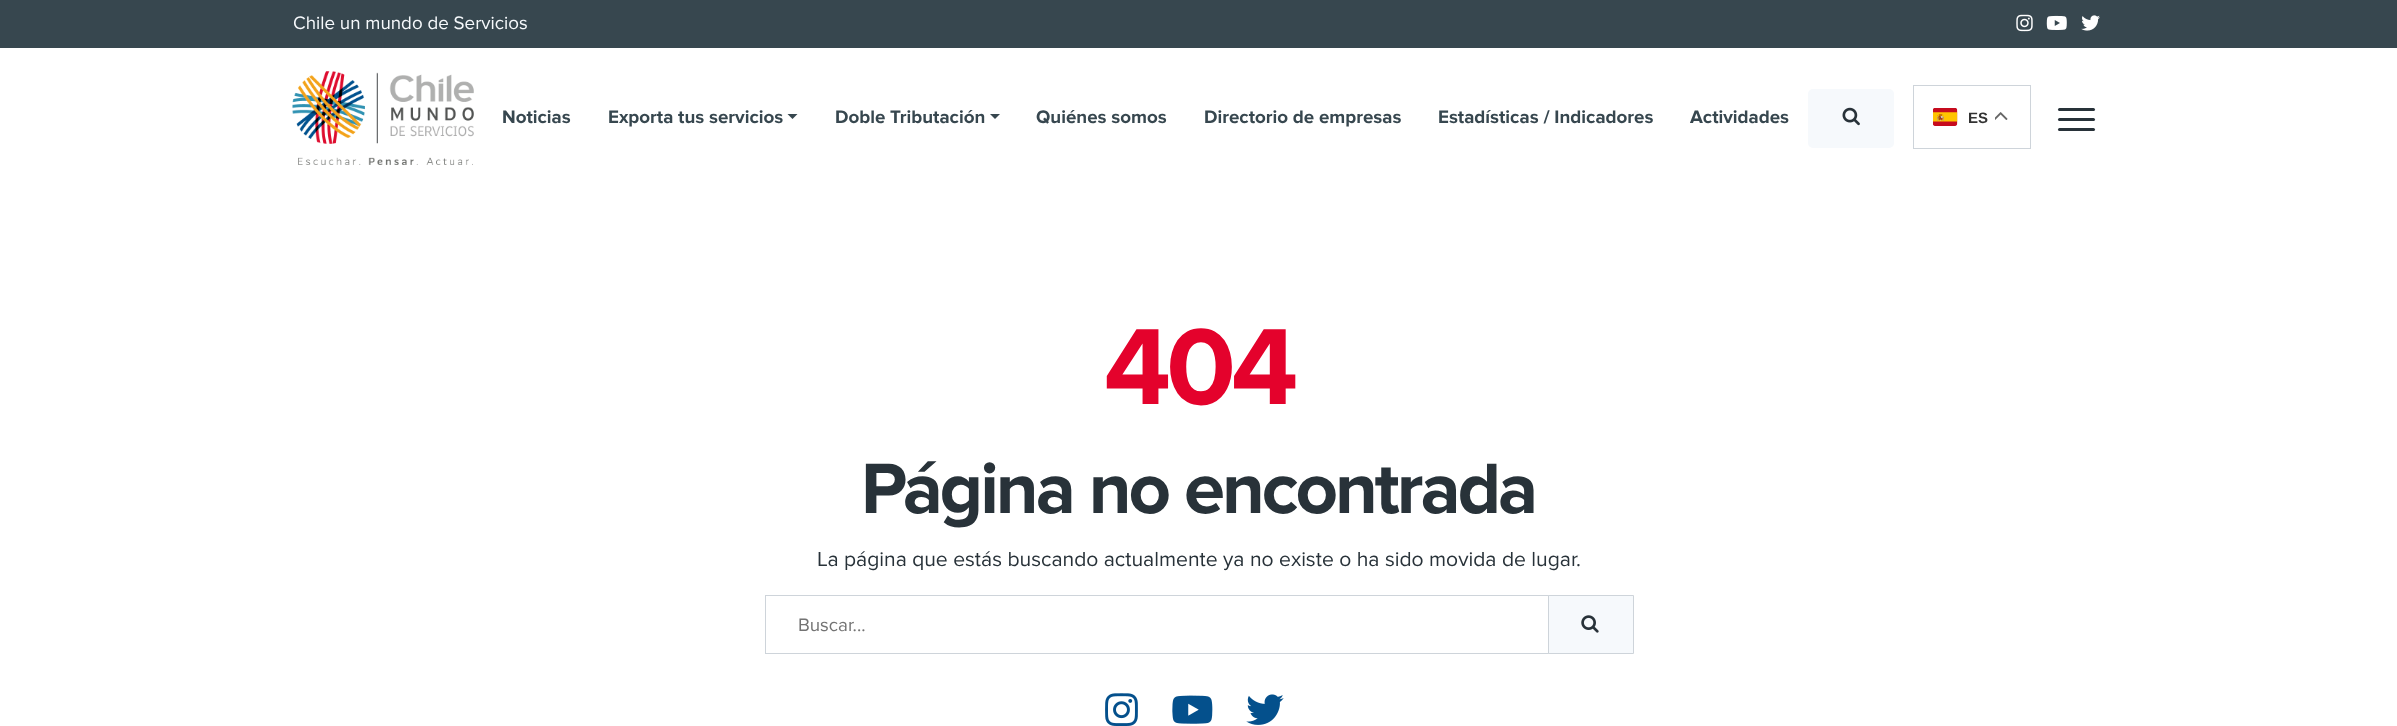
<!DOCTYPE html>
<meta charset="utf-8">
<style>body { margin: 0 } canvas { display: block }</style>
<canvas id="canvas" width="2397" height="726"></canvas>
<img id="img1" src="img_01.png" hidden>
<img id="img2" src="img_02.png" hidden>
<img id="img3" src="img_03.png" hidden>
<img id="img4" src="img_04.png" hidden>
<img id="img5" src="img_05.png" hidden>
<img id="img6" src="img_06.png" hidden>
<img id="img7" src="img_07.png" hidden>
<img id="img8" src="img_08.png" hidden>
<img id="img9" src="img_09.png" hidden>
<img id="img10" src="img_10.png" hidden>
<img id="img11" src="img_11.png" hidden>
<script>
window.onload = function () {
	const canvas = document.getElementById("canvas");
	const ctx = canvas.getContext("2d");
	ctx.miterLimit = 4;
	ctx.fontKerning = "normal";
	function txt(s, x, y) {
		ctx.fillText(s, x, y);
	}
	function fill(x, y, w, h) {
		ctx.fillRect(x, y, w, h);
	}
	function round(x, y, w, h, r) {
		ctx.beginPath();
		ctx.roundRect(x, y, w, h, r);
		ctx.fill();
	}
	function img(id, x, y, w, h) {
		ctx.drawImage(document.getElementById(id), x, y, w, h);
	}

	ctx.fillStyle = "#FFFFFF";
	fill(0, 0, 2397, 726);
	ctx.fillStyle = "#37474F";
	fill(0, 0, 2397, 48);
	img("img1", 2016, 14, 17, 18);
	img("img2", 2046, 15, 21, 15);
	img("img3", 2081, 15, 19, 16);
	img("img4", 292, 71, 182, 94);
	ctx.beginPath();
	ctx.moveTo(787.5, 114);
	ctx.lineTo(797.5, 114);
	ctx.lineTo(792.5, 119);
	ctx.closePath();
	ctx.fill();
	ctx.beginPath();
	ctx.moveTo(990, 114);
	ctx.lineTo(1000, 114);
	ctx.lineTo(995, 119);
	ctx.closePath();
	ctx.fill();
	ctx.fillStyle = "#F6F9FC";
	round(1808, 89, 86, 59, 5);
	img("img5", 1842, 107, 18, 19);
	ctx.strokeStyle = "#CED4DA";
	ctx.strokeRect(1913.5, 85.5, 117, 63);
	img("img6", 1933, 108, 25, 18);
	img("img7", 1995, 112, 13, 8);
	ctx.fillStyle = "#283239";
	round(2058, 118, 37, 3, 1.5);
	round(2058, 108, 37, 3, 1.5);
	round(2058, 128, 37, 3, 1.5);
	ctx.strokeRect(765.5, 595.5, 783, 58);
	ctx.fillStyle = "#F6F9FC";
	ctx.beginPath();
	ctx.rect(1548.5, 595.5, 85, 58);
	ctx.fill();
	ctx.stroke();
	img("img8", 1581, 615, 18, 18);
	img("img9", 1105, 693, 33, 33);
	img("img10", 1172, 695, 41, 29);
	img("img11", 1246, 694, 38, 31);
	ctx.font = "18.75px Proxima Nova";
	txt("Chile un mundo de Servicios", 293, 29);
	ctx.font = "bold 18.75px Proxima Nova";
	ctx.fillStyle = "#37474F";
	txt("Noticias", 502, 123);
	txt("Exporta tus servicios", 608, 123);
	txt("Doble Tributación", 835, 123);
	txt("Quiénes somos", 1036, 123);
	txt("Directorio de empresas", 1204, 123);
	txt("Estadísticas / Indicadores", 1438, 123);
	txt("Actividades", 1690, 123);
	ctx.font = "bold 15px Liberation Sans";
	ctx.fillStyle = "#333333";
	txt("ES", 1968, 123);
	ctx.letterSpacing = "-4.5px";
	ctx.font = "bold 112px Proxima Nova";
	ctx.fillStyle = "#E4022C";
	txt("404", 1104, 404);
	ctx.letterSpacing = "-3px";
	ctx.font = "bold 74px Proxima Nova";
	ctx.fillStyle = "#283239";
	txt("Página no encontrada", 861, 513);
	ctx.letterSpacing = "0px";
	ctx.font = "21.1px Proxima Nova";
	txt("La página que estás buscando actualmente ya no existe o ha sido movida de lugar.", 817, 566);
	ctx.font = "18.75px Proxima Nova";
	ctx.fillStyle = "#737373";
	txt("Buscar...", 798, 631);
};
</script>
